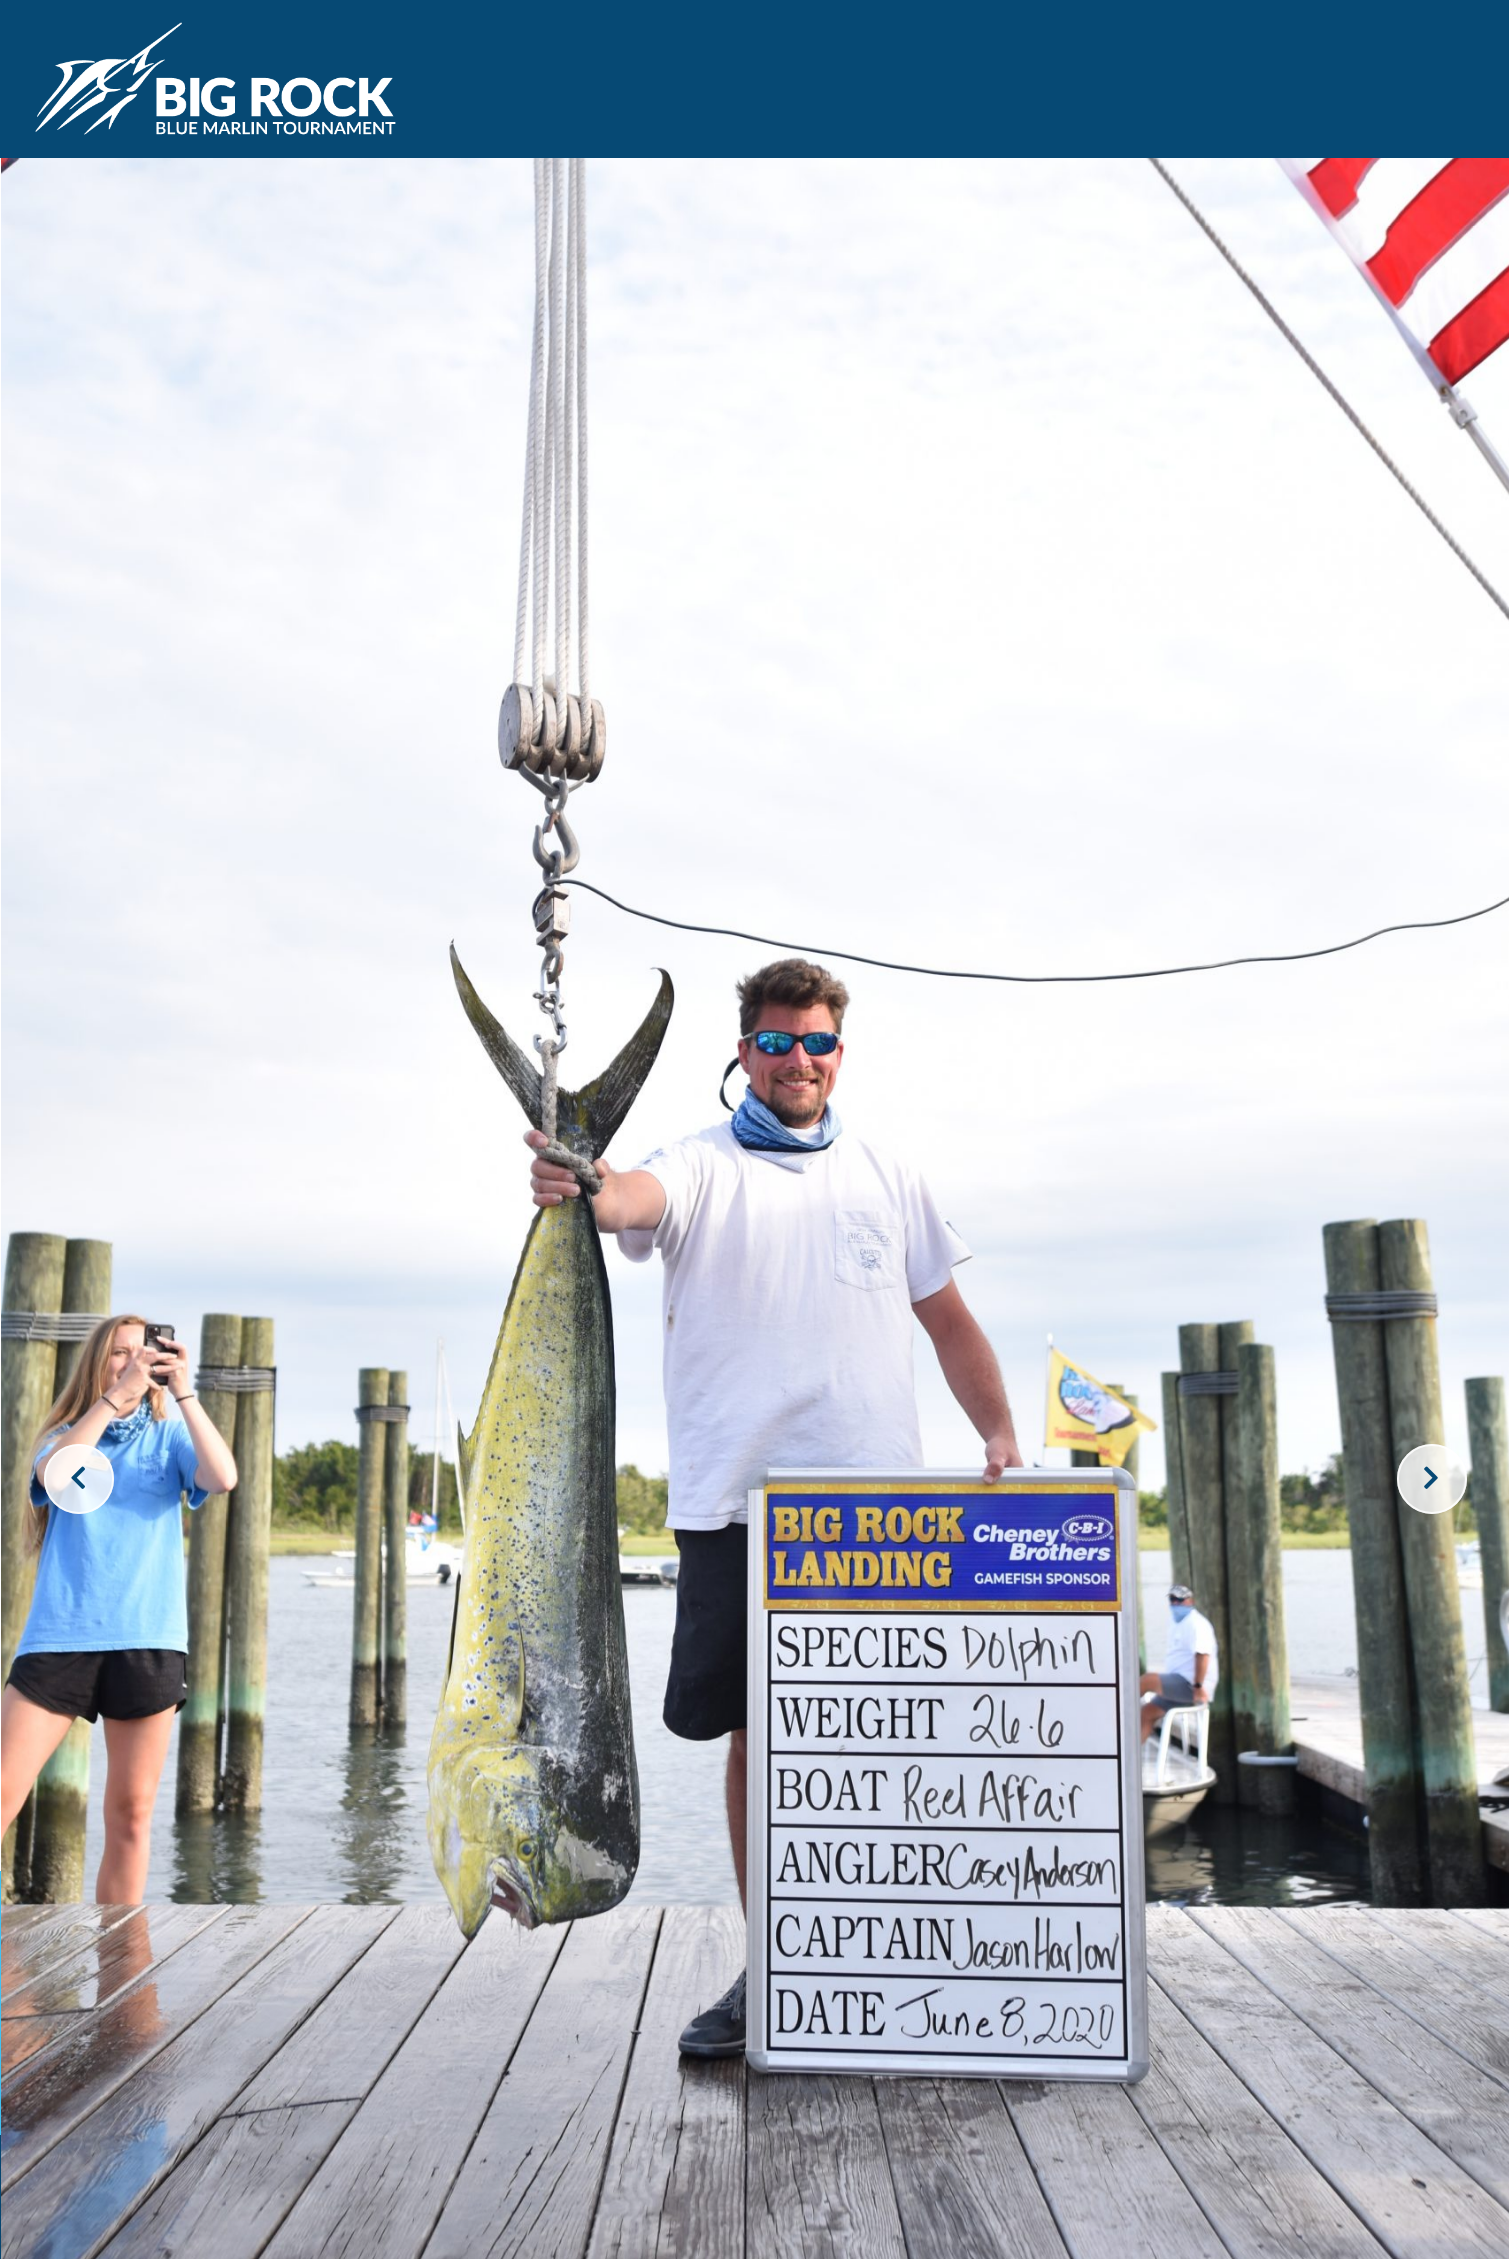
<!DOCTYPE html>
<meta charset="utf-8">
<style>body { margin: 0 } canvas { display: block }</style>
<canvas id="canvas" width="1509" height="2259"></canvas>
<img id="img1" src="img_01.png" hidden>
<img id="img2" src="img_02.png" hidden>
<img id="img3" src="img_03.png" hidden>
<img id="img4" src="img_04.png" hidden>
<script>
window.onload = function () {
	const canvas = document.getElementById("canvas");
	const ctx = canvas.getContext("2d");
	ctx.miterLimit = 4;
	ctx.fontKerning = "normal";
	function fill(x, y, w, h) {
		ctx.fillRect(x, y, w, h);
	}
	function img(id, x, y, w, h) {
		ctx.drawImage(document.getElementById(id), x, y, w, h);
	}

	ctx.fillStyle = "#FFFFFF";
	fill(0, 0, 1509, 2259);
	ctx.fillStyle = "#064974";
	fill(0, 0, 1509, 158);
	img("img1", 35, 22, 361, 113);
	img("img2", 1, 158, 1508, 2101);
	ctx.fillStyle = "rgba(255, 255, 255, 0.8)";
	ctx.beginPath();
	ctx.arc(79, 1479, 35, 0, Math.PI * 2);
	ctx.fill();
	ctx.beginPath();
	ctx.arc(79, 1479, 34, 0, Math.PI * 2);
	ctx.strokeStyle = "rgba(255, 255, 255, 0.8)";
	ctx.lineWidth = 2;
	ctx.stroke();
	img("img3", 71, 1466, 14, 23);
	ctx.beginPath();
	ctx.arc(1432, 1479, 35, 0, Math.PI * 2);
	ctx.fill();
	ctx.beginPath();
	ctx.arc(1432, 1479, 34, 0, Math.PI * 2);
	ctx.stroke();
	img("img4", 1424, 1466, 14, 23);
	ctx.fillStyle = "#40C2F3";
	fill(0, 1871, 1, 264);
	ctx.fillStyle = "#06456F";
	fill(0, 2135, 1, 124);
};
</script>
